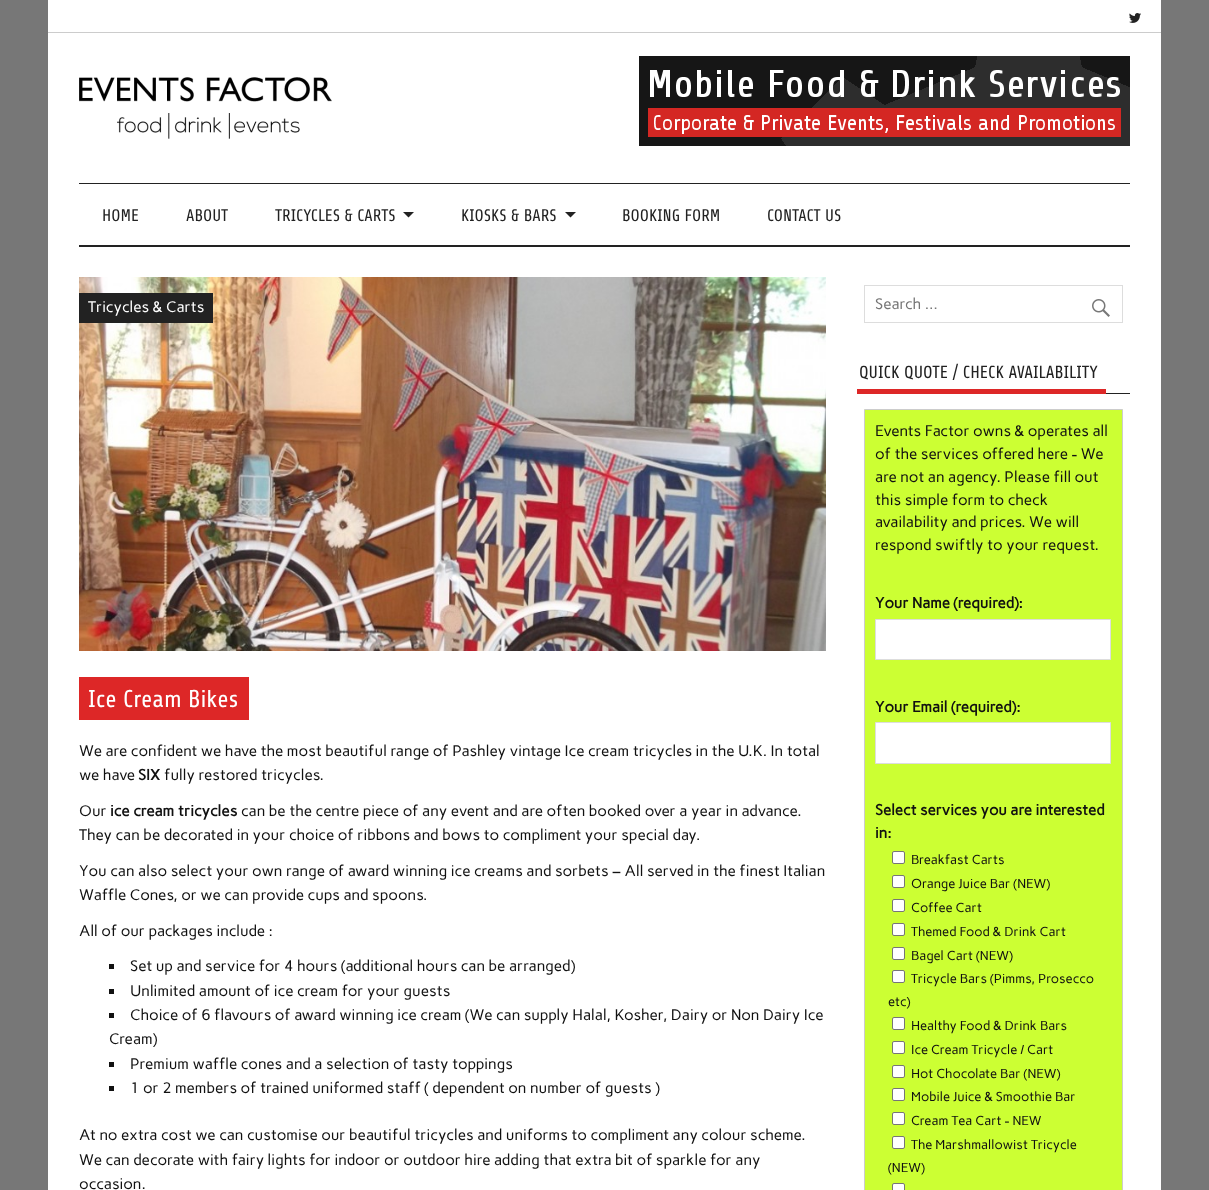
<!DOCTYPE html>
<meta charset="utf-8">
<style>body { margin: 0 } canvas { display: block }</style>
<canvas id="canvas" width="1209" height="1190"></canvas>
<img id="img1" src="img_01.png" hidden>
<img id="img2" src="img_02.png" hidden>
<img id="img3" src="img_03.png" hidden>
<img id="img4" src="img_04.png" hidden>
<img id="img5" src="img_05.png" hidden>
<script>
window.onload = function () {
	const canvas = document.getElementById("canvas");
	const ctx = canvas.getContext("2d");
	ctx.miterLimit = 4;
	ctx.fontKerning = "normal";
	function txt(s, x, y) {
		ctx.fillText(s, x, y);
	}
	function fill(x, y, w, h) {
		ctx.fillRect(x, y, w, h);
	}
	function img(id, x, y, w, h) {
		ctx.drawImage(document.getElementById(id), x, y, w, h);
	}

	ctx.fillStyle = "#777777";
	fill(0, 0, 1209, 1190);
	ctx.fillStyle = "#FFFFFF";
	fill(48, 0, 1113, 1190);
	ctx.fillStyle = "#CCCCCC";
	fill(48, 32, 1113, 1);
	img("img1", 1129, 13, 12, 10);
	img("img2", 79, 77, 253, 62);
	img("img3", 639, 56, 491, 90);
	ctx.fillStyle = "#222222";
	fill(79, 183, 1051, 1);
	fill(79, 245, 1051, 2);
	ctx.beginPath();
	ctx.moveTo(403, 212);
	ctx.lineTo(414, 212);
	ctx.lineTo(408.5, 217.5);
	ctx.closePath();
	ctx.fill();
	ctx.beginPath();
	ctx.moveTo(565, 212);
	ctx.lineTo(576, 212);
	ctx.lineTo(570.5, 217.5);
	ctx.closePath();
	ctx.fill();
	img("img4", 79, 277, 747, 374);
	fill(79, 293, 134, 30);
	ctx.fillStyle = "#DD2727";
	fill(79, 677, 170, 43);
	ctx.fillStyle = "#111111";
	fill(109, 964, 5, 5);
	fill(109, 989, 5, 5);
	fill(109, 1013, 5, 5);
	fill(109, 1062, 5, 5);
	fill(109, 1086, 5, 5);
	ctx.strokeStyle = "#DDDDDD";
	ctx.strokeRect(864.5, 285.5, 258, 37);
	img("img5", 1092, 299, 18, 18);
	ctx.fillStyle = "#222222";
	fill(1106, 393, 24, 1);
	ctx.fillStyle = "#DD2727";
	fill(857, 389, 249, 5);
	ctx.fillStyle = "#CCFF33";
	ctx.beginPath();
	ctx.rect(864.5, 409.5, 258, 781);
	ctx.fill();
	ctx.strokeStyle = "#CCCCCC";
	ctx.stroke();
	ctx.fillStyle = "#FFFFFF";
	ctx.beginPath();
	ctx.rect(875.5, 619.5, 235, 40);
	ctx.fill();
	ctx.strokeStyle = "#DDDDDD";
	ctx.stroke();
	ctx.beginPath();
	ctx.rect(875.5, 722.5, 235, 41);
	ctx.fill();
	ctx.stroke();
	ctx.beginPath();
	ctx.roundRect(892.5, 851.5, 12, 12, 1.5);
	ctx.fill();
	ctx.strokeStyle = "#767676";
	ctx.stroke();
	ctx.beginPath();
	ctx.roundRect(892.5, 875.5, 12, 12, 1.5);
	ctx.fill();
	ctx.stroke();
	ctx.beginPath();
	ctx.roundRect(892.5, 899.5, 12, 12, 1.5);
	ctx.fill();
	ctx.stroke();
	ctx.beginPath();
	ctx.roundRect(892.5, 923.5, 12, 12, 1.5);
	ctx.fill();
	ctx.stroke();
	ctx.beginPath();
	ctx.roundRect(892.5, 947.5, 12, 12, 1.5);
	ctx.fill();
	ctx.stroke();
	ctx.beginPath();
	ctx.roundRect(892.5, 970.5, 12, 12, 1.5);
	ctx.fill();
	ctx.stroke();
	ctx.beginPath();
	ctx.roundRect(892.5, 1017.5, 12, 12, 1.5);
	ctx.fill();
	ctx.stroke();
	ctx.beginPath();
	ctx.roundRect(892.5, 1041.5, 12, 12, 1.5);
	ctx.fill();
	ctx.stroke();
	ctx.beginPath();
	ctx.roundRect(892.5, 1065.5, 12, 12, 1.5);
	ctx.fill();
	ctx.stroke();
	ctx.beginPath();
	ctx.roundRect(892.5, 1088.5, 12, 12, 1.5);
	ctx.fill();
	ctx.stroke();
	ctx.beginPath();
	ctx.roundRect(892.5, 1112.5, 12, 12, 1.5);
	ctx.fill();
	ctx.stroke();
	ctx.beginPath();
	ctx.roundRect(892.5, 1136.5, 12, 12, 1.5);
	ctx.fill();
	ctx.stroke();
	ctx.beginPath();
	ctx.roundRect(892.5, 1183.5, 12, 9, 1.5);
	ctx.fill();
	ctx.stroke();
	ctx.font = "16.75px Share";
	ctx.fillStyle = "#222222";
	txt("HOME", 102, 221);
	txt("ABOUT", 186, 221);
	txt("TRICYCLES & CARTS", 275, 221);
	txt("KIOSKS & BARS", 461, 221);
	txt("BOOKING FORM", 622, 221);
	txt("CONTACT US", 767, 221);
	ctx.font = "15.2px Carme";
	ctx.fillStyle = "#FFFFFF";
	txt("Tricycles & Carts", 88, 312);
	ctx.font = "24.25px Share";
	txt("Ice Cream Bikes", 88, 707);
	ctx.font = "15.2px Carme";
	ctx.fillStyle = "#111111";
	txt("We are confident we have the most beautiful range of Pashley vintage Ice cream tricycles in the U.K. In total", 79, 756);
	txt("we have", 79, 780);
	ctx.font = "bold 15.2px Carme";
	txt("SIX", 138, 780);
	ctx.font = "15.2px Carme";
	txt("fully restored tricycles.", 164, 780);
	txt("Our", 79, 816);
	ctx.font = "bold 15.2px Carme";
	txt("ice cream tricycles", 110, 816);
	ctx.font = "15.2px Carme";
	txt("can be the centre piece of any event and are often booked over a year in advance.", 241, 816);
	txt("They can be decorated in your choice of ribbons and bows to compliment your special day.", 79, 840);
	txt("You can also select your own range of award winning ice creams and sorbets – All served in the finest Italian", 79, 876);
	txt("Waffle Cones, or we can provide cups and spoons.", 79, 900);
	txt("All of our packages include :", 79, 936);
	txt("Set up and service for 4 hours (additional hours can be arranged)", 130, 971);
	txt("Unlimited amount of ice cream for your guests", 130, 996);
	txt("Choice of 6 flavours of award winning ice cream (We can supply Halal, Kosher, Dairy or Non Dairy Ice", 130, 1020);
	txt("Cream)", 109, 1044);
	txt("Premium waffle cones and a selection of tasty toppings", 130, 1069);
	txt("1 or 2 members of trained uniformed staff ( dependent on number of guests )", 130, 1093);
	txt("At no extra cost we can customise our beautiful tricycles and uniforms to compliment any colour scheme.", 79, 1140);
	txt("We can decorate with fairy lights for indoor or outdoor hire adding that extra bit of sparkle for any", 79, 1165);
	txt("occasion.", 79, 1189);
	ctx.fillStyle = "#757575";
	txt("Search …", 875, 309);
	ctx.font = "17.5px Share";
	ctx.fillStyle = "#222222";
	txt("QUICK QUOTE / CHECK AVAILABILITY", 859, 378);
	ctx.font = "15.2px Carme";
	ctx.fillStyle = "#111111";
	txt("Events Factor owns & operates all", 875, 436);
	txt("of the services offered here - We", 875, 459);
	txt("are not an agency. Please fill out", 875, 482);
	txt("this simple form to check", 875, 505);
	txt("availability and prices. We will", 875, 527);
	txt("respond swiftly to your request.", 875, 550);
	ctx.font = "bold 15px Carme";
	txt("Your Name (required):", 875, 608);
	txt("Your Email (required):", 875, 712);
	txt("Select services you are interested", 875, 815);
	txt("in:", 875, 838);
	ctx.font = "13px Carme";
	txt("Breakfast Carts", 911, 864);
	txt("Orange Juice Bar (NEW)", 911, 888);
	txt("Coffee Cart", 911, 912);
	txt("Themed Food & Drink Cart", 911, 936);
	txt("Bagel Cart (NEW)", 911, 960);
	txt("Tricycle Bars (Pimms, Prosecco", 911, 983);
	txt("etc)", 888, 1006);
	txt("Healthy Food & Drink Bars", 911, 1030);
	txt("Ice Cream Tricycle / Cart", 911, 1054);
	txt("Hot Chocolate Bar (NEW)", 911, 1078);
	txt("Mobile Juice & Smoothie Bar", 911, 1101);
	txt("Cream Tea Cart - NEW", 911, 1125);
	txt("The Marshmallowist Tricycle", 911, 1149);
	txt("(NEW)", 888, 1172);
};
</script>
